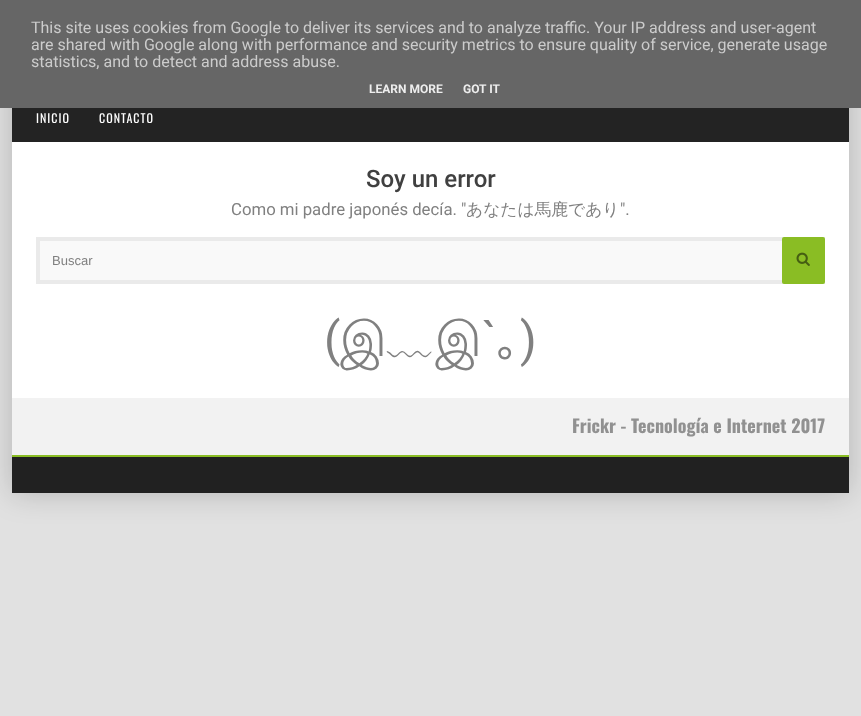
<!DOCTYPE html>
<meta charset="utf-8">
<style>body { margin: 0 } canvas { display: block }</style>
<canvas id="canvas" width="861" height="716"></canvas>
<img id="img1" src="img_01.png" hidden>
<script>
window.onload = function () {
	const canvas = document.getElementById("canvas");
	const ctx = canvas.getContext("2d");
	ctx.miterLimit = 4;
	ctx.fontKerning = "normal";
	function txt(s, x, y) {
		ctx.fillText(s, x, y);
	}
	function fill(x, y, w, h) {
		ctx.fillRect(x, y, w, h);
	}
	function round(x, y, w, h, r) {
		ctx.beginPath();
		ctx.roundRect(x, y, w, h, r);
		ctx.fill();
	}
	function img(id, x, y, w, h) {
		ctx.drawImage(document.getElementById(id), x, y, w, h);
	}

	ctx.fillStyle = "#E1E1E1";
	fill(0, 0, 861, 716);
	ctx.fillStyle = "rgba(0, 0, 0, 0.2)";
	ctx.filter = "blur(15px)";
	ctx.beginPath();
	ctx.rect(12, 0, 837, 493);
	ctx.fill();
	ctx.filter = "none";
	ctx.fillStyle = "#666666";
	fill(0, 0, 861, 108);
	ctx.fillStyle = "#FFFFFF";
	fill(12, 142, 837, 256);
	ctx.fillStyle = "#232323";
	fill(12, 108, 837, 34);
	ctx.fillStyle = "#F9F9F9";
	fill(40, 241, 742, 39);
	ctx.strokeStyle = "#EAEAEA";
	ctx.lineWidth = 4;
	ctx.strokeRect(38, 239, 785, 43);
	ctx.fillStyle = "#8ABD24";
	round(782, 237, 43, 47, 2);
	img("img1", 796, 252, 14, 14);
	ctx.fillStyle = "#F2F2F2";
	fill(12, 398, 837, 57);
	ctx.fillStyle = "#212121";
	fill(12, 457, 837, 36);
	ctx.fillStyle = "#8ABD24";
	fill(12, 455, 837, 2);
	ctx.font = "16px Roboto";
	ctx.fillStyle = "#CCCCCC";
	txt("This site uses cookies from Google to deliver its services and to analyze traffic. Your IP address and user-agent", 31, 33);
	txt("are shared with Google along with performance and security metrics to ensure quality of service, generate usage", 31, 50);
	txt("statistics, and to detect and address abuse.", 31, 67);
	ctx.font = "bold 12px Roboto";
	ctx.fillStyle = "#EEEEEE";
	txt("LEARN MORE", 369, 93);
	txt("GOT IT", 463, 93);
	ctx.letterSpacing = "1px";
	ctx.font = "12px Oswald";
	ctx.fillStyle = "#FFFFFF";
	txt("INICIO", 36, 123);
	txt("CONTACTO", 99, 123);
	ctx.letterSpacing = "0px";
	ctx.font = "500 24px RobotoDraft";
	ctx.fillStyle = "#404040";
	txt("Soy un error", 366, 187);
	ctx.font = "16.75px RobotoDraft";
	ctx.fillStyle = "#808080";
	txt("Como mi padre japonés decía. \"", 231, 215);
	ctx.font = "500 16.75px WenQuanYi Zen Hei";
	txt("あなたは馬鹿であり", 466, 215);
	ctx.font = "16.75px RobotoDraft";
	txt("\".", 620, 215);
	ctx.font = "13px Liberation Sans";
	txt("Buscar", 52, 265);
	ctx.font = "48px RobotoDraft";
	txt("(", 324, 356);
	ctx.font = "48px Lohit Tamil";
	txt("இ", 340, 356);
	txt("இ", 435, 356);
	ctx.font = "48px RobotoDraft";
	txt("`", 482, 356);
	txt(")", 520, 356);
	ctx.font = "500 48px WenQuanYi Zen Hei";
	txt("﹏", 387, 356);
	ctx.font = "48px IPAGothic";
	txt("｡", 496, 356);
	ctx.font = "bold 18px Oswald";
	ctx.fillStyle = "#919191";
	txt("Frickr - Tecnología e Internet 2017", 572, 433);
};
</script>
